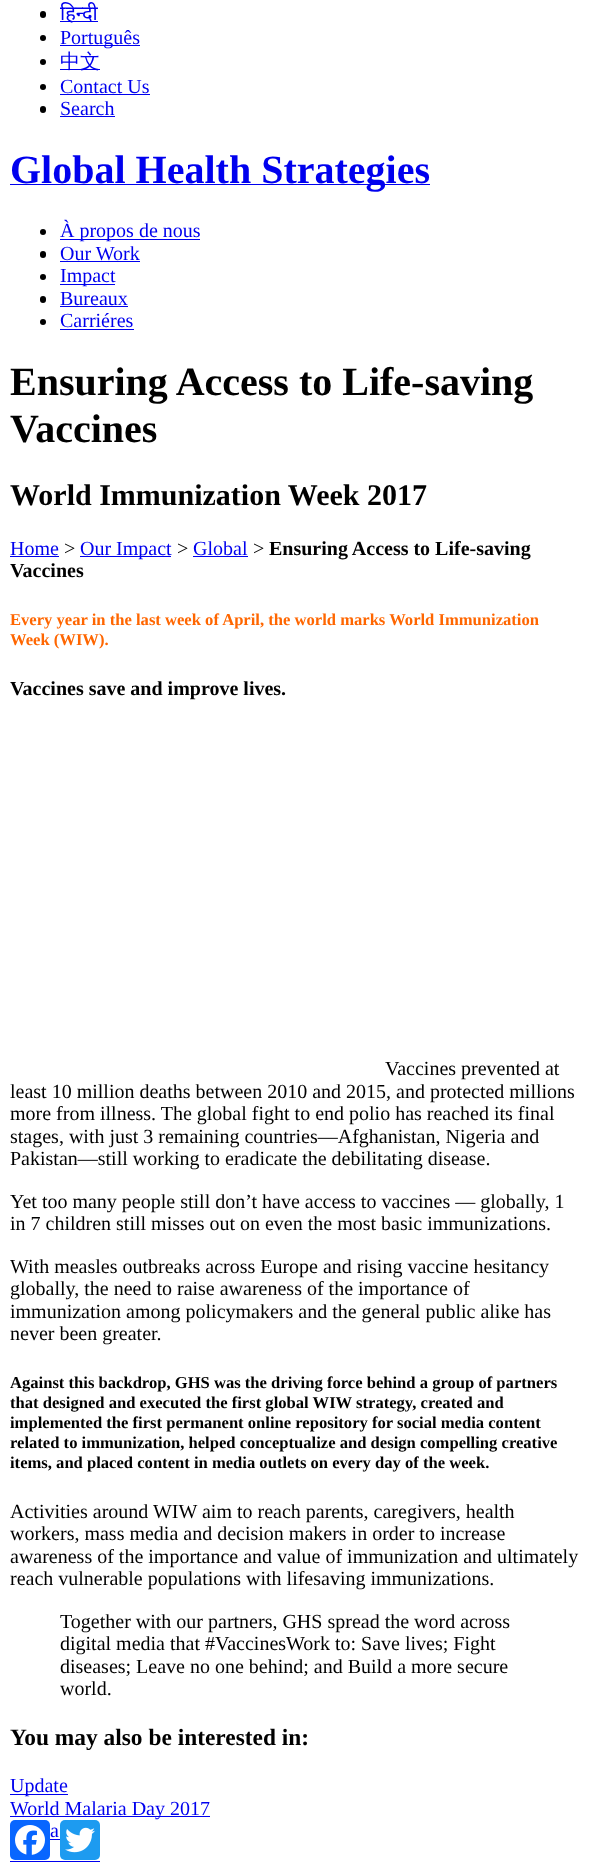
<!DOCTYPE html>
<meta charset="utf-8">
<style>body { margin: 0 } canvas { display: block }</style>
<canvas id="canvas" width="590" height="1869"></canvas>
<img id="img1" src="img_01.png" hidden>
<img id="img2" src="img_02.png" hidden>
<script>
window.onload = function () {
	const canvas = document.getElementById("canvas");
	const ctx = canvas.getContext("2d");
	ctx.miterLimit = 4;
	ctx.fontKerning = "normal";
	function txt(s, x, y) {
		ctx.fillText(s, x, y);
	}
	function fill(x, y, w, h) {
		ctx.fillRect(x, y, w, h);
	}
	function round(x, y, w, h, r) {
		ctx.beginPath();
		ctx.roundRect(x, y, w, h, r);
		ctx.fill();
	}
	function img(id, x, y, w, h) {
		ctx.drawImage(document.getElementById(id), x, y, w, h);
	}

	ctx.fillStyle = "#FFFFFF";
	fill(0, 0, 590, 1869);
	ctx.fillStyle = "#000000";
	round(40, 11, 6, 7, 3);
	ctx.fillStyle = "#0000EE";
	fill(60, 21, 38, 1);
	ctx.fillStyle = "#000000";
	ctx.beginPath();
	ctx.arc(43, 38, 3, 0, Math.PI * 2);
	ctx.fill();
	ctx.fillStyle = "#0000EE";
	fill(60, 45, 80, 1);
	ctx.fillStyle = "#000000";
	ctx.beginPath();
	ctx.arc(43, 62, 3, 0, Math.PI * 2);
	ctx.fill();
	ctx.fillStyle = "#0000EE";
	fill(60, 69, 40, 1);
	ctx.fillStyle = "#000000";
	ctx.beginPath();
	ctx.arc(43, 87, 3, 0, Math.PI * 2);
	ctx.fill();
	ctx.fillStyle = "#0000EE";
	fill(60, 94, 90, 1);
	ctx.fillStyle = "#000000";
	round(40, 106, 6, 7, 3);
	ctx.fillStyle = "#0000EE";
	fill(60, 116, 55, 1);
	fill(10, 184, 420, 1);
	ctx.fillStyle = "#000000";
	ctx.beginPath();
	ctx.arc(43, 232, 3, 0, Math.PI * 2);
	ctx.fill();
	ctx.fillStyle = "#0000EE";
	fill(60, 239, 140, 1);
	ctx.fillStyle = "#000000";
	round(40, 251, 6, 7, 3);
	ctx.fillStyle = "#0000EE";
	fill(60, 261, 80, 1);
	ctx.fillStyle = "#000000";
	ctx.beginPath();
	ctx.arc(43, 277, 3, 0, Math.PI * 2);
	ctx.fill();
	ctx.fillStyle = "#0000EE";
	fill(60, 284, 55, 1);
	ctx.fillStyle = "#000000";
	round(40, 296, 6, 7, 3);
	ctx.fillStyle = "#0000EE";
	fill(60, 306, 68, 1);
	ctx.fillStyle = "#000000";
	ctx.beginPath();
	ctx.arc(43, 322, 3, 0, Math.PI * 2);
	ctx.fill();
	ctx.fillStyle = "#0000EE";
	fill(60, 329, 74, 1);
	fill(10, 556, 49, 1);
	fill(80, 556, 91, 1);
	fill(193, 556, 55, 1);
	fill(10, 1794, 58, 1);
	fill(10, 1816, 200, 1);
	fill(50, 1839, 15, 1);
	fill(10, 1861, 90, 1);
	ctx.fillStyle = "#0866FF";
	round(10, 1820, 40, 40, 5);
	img("img1", 15, 1825, 30, 30);
	ctx.fillStyle = "#1D9BF0";
	round(60, 1820, 40, 40, 5);
	img("img2", 65, 1827, 30, 26);
	ctx.font = "20px Noto Sans";
	ctx.fillStyle = "#0000EE";
	txt("हिन्दी", 60, 20);
	ctx.font = "20px Liberation Serif";
	txt("Português", 60, 44);
	ctx.font = "500 20px WenQuanYi Zen Hei";
	txt("中文", 60, 68);
	ctx.font = "20px Liberation Serif";
	txt("Contact Us", 60, 93);
	txt("Search", 60, 115);
	ctx.font = "bold 40px Liberation Serif";
	txt("Global Health Strategies", 10, 183);
	ctx.font = "20px Liberation Serif";
	txt("À propos de nous", 60, 237);
	txt("Our Work", 60, 260);
	txt("Impact", 60, 282);
	txt("Bureaux", 60, 305);
	txt("Carriéres", 60, 327);
	ctx.font = "bold 40px Liberation Serif";
	ctx.fillStyle = "#000000";
	txt("Ensuring Access to Life-saving", 10, 395);
	txt("Vaccines", 10, 442);
	ctx.font = "bold 30px Liberation Serif";
	txt("World Immunization Week 2017", 10, 505);
	ctx.font = "20px Liberation Serif";
	ctx.fillStyle = "#0000EE";
	txt("Home", 10, 555);
	ctx.fillStyle = "#000000";
	txt(">", 64, 555);
	ctx.fillStyle = "#0000EE";
	txt("Our Impact", 80, 555);
	ctx.fillStyle = "#000000";
	txt(">", 177, 555);
	ctx.fillStyle = "#0000EE";
	txt("Global", 193, 555);
	ctx.fillStyle = "#000000";
	txt(">", 253, 555);
	ctx.font = "bold 20px Liberation Serif";
	txt("Ensuring Access to Life-saving", 269, 555);
	txt("Vaccines", 10, 577);
	ctx.font = "bold 16.6px Liberation Serif";
	ctx.fillStyle = "#FF6600";
	txt("Every year in the last week of April, the world marks World Immunization", 10, 625);
	txt("Week (WIW).", 10, 645);
	ctx.font = "bold 20px Liberation Serif";
	ctx.fillStyle = "#000000";
	txt("Vaccines save and improve lives.", 10, 695);
	ctx.font = "20px Liberation Serif";
	txt("Vaccines prevented at", 385, 1075);
	txt("least 10 million deaths between 2010 and 2015, and protected millions", 10, 1098);
	txt("more from illness. The global fight to end polio has reached its final", 10, 1120);
	txt("stages, with just 3 remaining countries—Afghanistan, Nigeria and", 10, 1143);
	txt("Pakistan—still working to eradicate the debilitating disease.", 10, 1165);
	txt("Yet too many people still don’t have access to vaccines — globally, 1", 10, 1208);
	txt("in 7 children still misses out on even the most basic immunizations.", 10, 1230);
	txt("With measles outbreaks across Europe and rising vaccine hesitancy", 10, 1273);
	txt("globally, the need to raise awareness of the importance of", 10, 1295);
	txt("immunization among policymakers and the general public alike has", 10, 1318);
	txt("never been greater.", 10, 1340);
	ctx.font = "bold 16.6px Liberation Serif";
	txt("Against this backdrop, GHS was the driving force behind a group of partners", 10, 1388);
	txt("that designed and executed the first global WIW strategy, created and", 10, 1408);
	txt("implemented the first permanent online repository for social media content", 10, 1428);
	txt("related to immunization, helped conceptualize and design compelling creative", 10, 1448);
	txt("items, and placed content in media outlets on every day of the week.", 10, 1468);
	ctx.font = "20px Liberation Serif";
	txt("Activities around WIW aim to reach parents, caregivers, health", 10, 1518);
	txt("workers, mass media and decision makers in order to increase", 10, 1540);
	txt("awareness of the importance and value of immunization and ultimately", 10, 1563);
	txt("reach vulnerable populations with lifesaving immunizations.", 10, 1585);
	txt("Together with our partners, GHS spread the word across", 60, 1628);
	txt("digital media that #VaccinesWork to: Save lives; Fight", 60, 1650);
	txt("diseases; Leave no one behind; and Build a more secure", 60, 1673);
	txt("world.", 60, 1695);
	ctx.font = "bold 23.4px Liberation Serif";
	txt("You may also be interested in:", 10, 1745);
	ctx.font = "20px Liberation Serif";
	ctx.fillStyle = "#0000EE";
	txt("Update", 10, 1792);
	txt("World Malaria Day 2017", 10, 1815);
	txt("a", 50, 1837);
};
</script>
